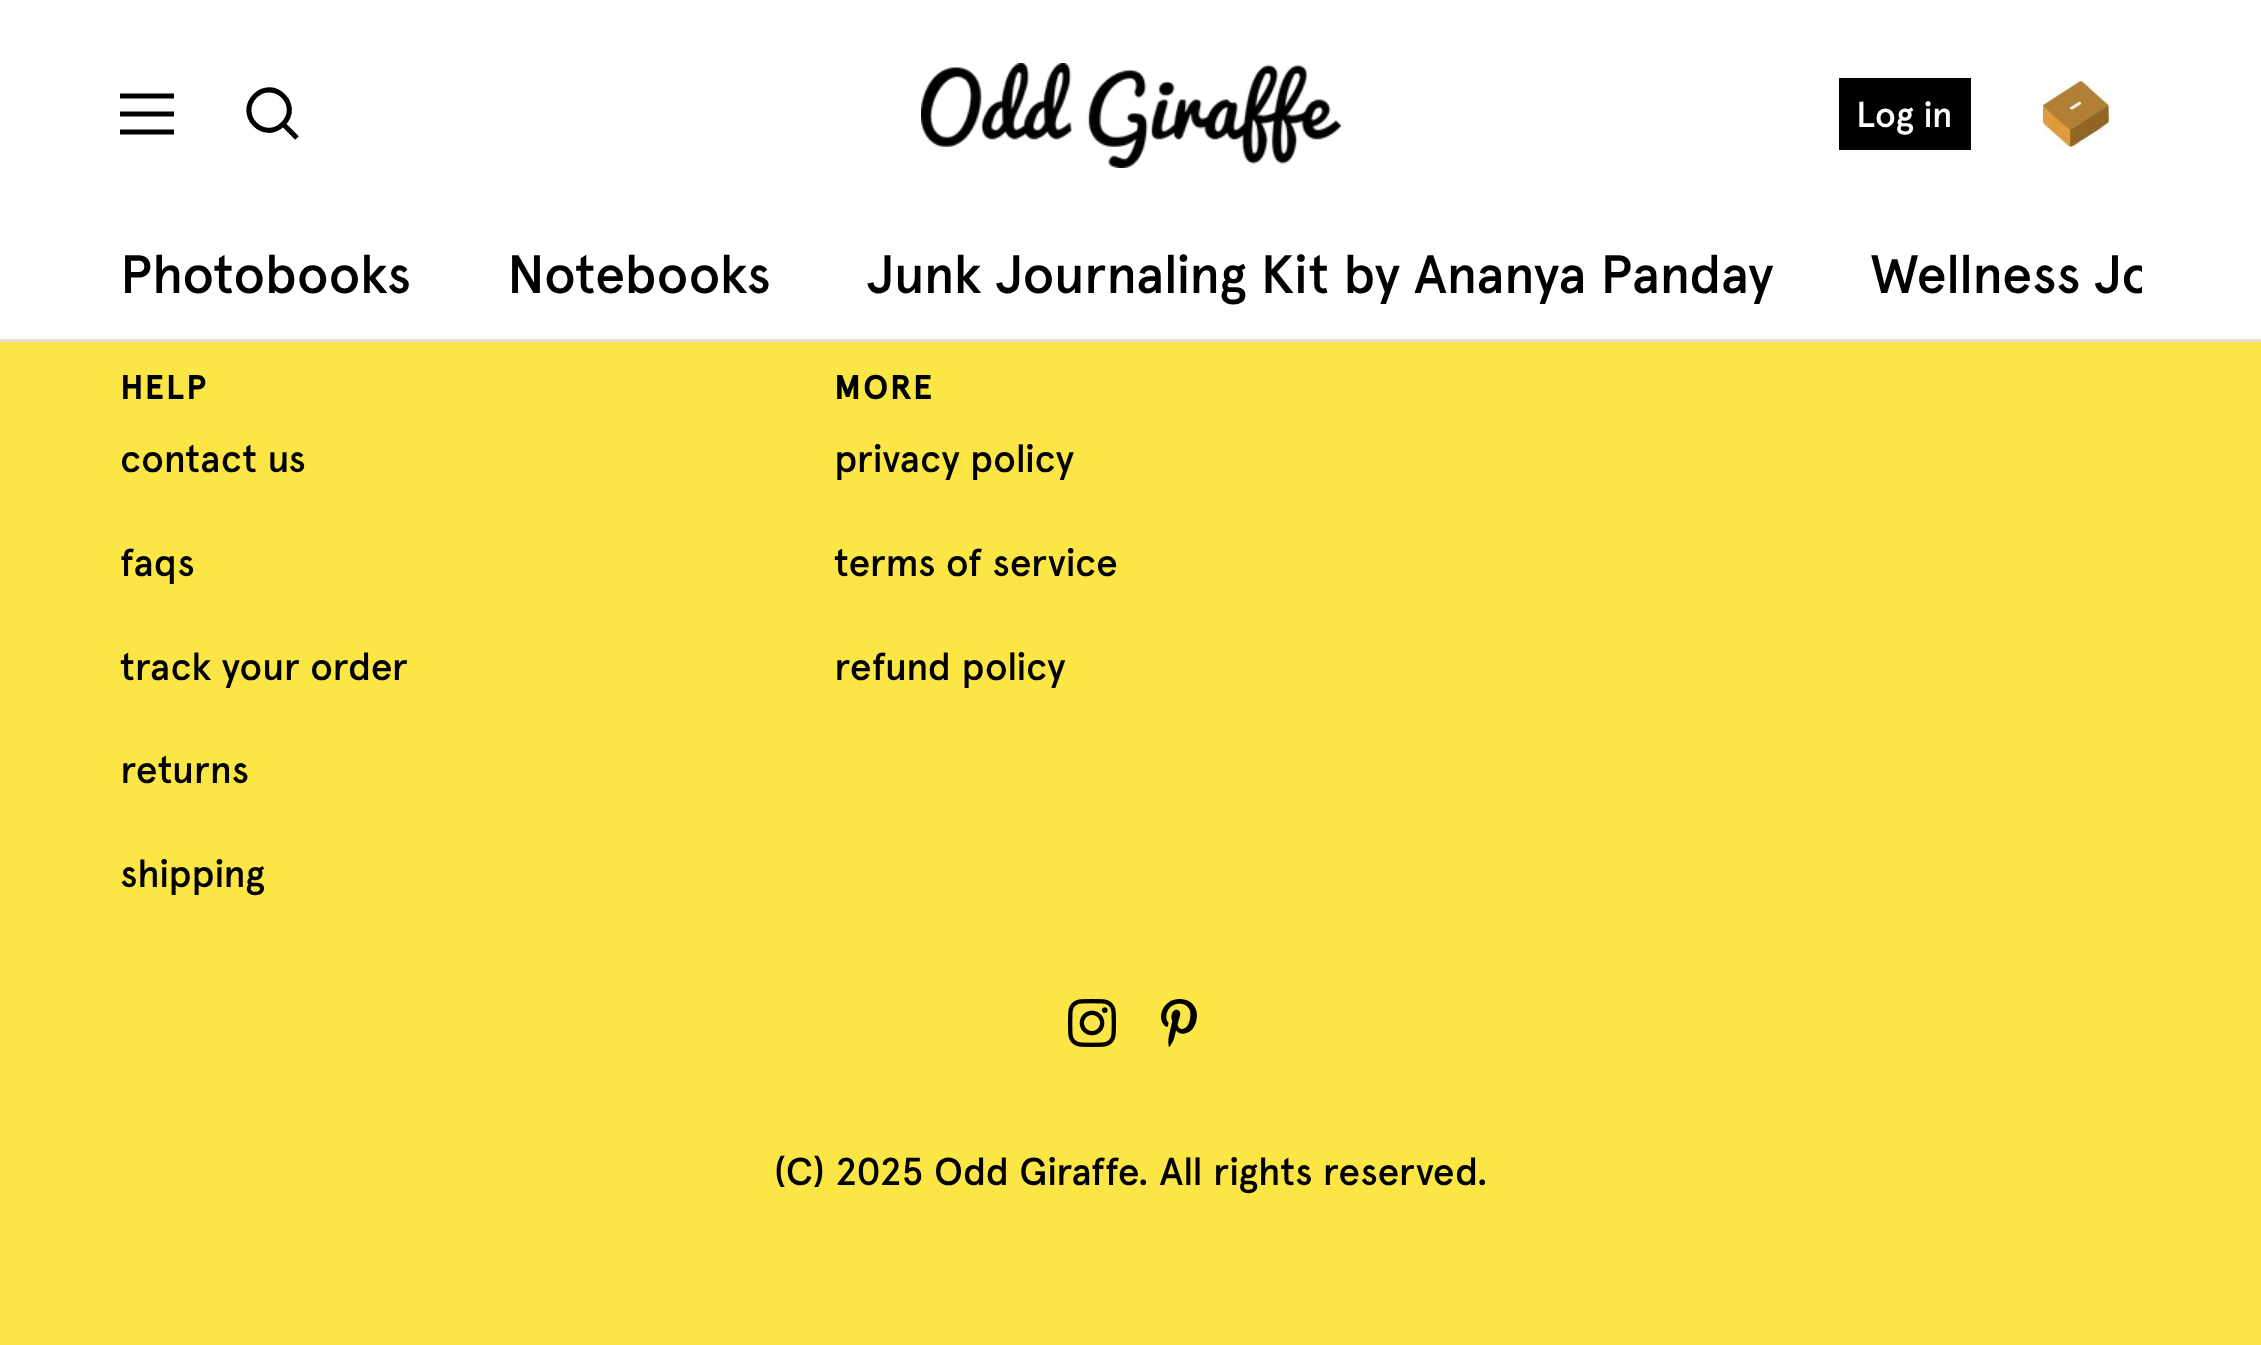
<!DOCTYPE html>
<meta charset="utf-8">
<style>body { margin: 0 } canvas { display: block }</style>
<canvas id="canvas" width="2261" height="1345"></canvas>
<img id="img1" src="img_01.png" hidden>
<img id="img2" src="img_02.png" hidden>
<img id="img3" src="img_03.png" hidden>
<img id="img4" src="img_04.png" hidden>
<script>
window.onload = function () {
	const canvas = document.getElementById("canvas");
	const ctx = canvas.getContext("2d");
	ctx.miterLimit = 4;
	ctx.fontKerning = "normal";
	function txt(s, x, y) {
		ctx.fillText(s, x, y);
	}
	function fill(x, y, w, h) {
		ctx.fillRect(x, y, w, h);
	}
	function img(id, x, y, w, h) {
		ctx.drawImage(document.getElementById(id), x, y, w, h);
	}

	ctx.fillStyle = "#FBE645";
	fill(0, 0, 2261, 1345);
	ctx.fillStyle = "#DDDDDD";
	fill(0, 339, 2261, 3);
	ctx.fillStyle = "#FFFFFF";
	fill(0, 0, 2261, 339);
	ctx.beginPath();
	ctx.moveTo(120, 96);
	ctx.lineTo(174, 96);
	ctx.moveTo(120, 132);
	ctx.lineTo(174, 132);
	ctx.closePath();
	ctx.moveTo(120, 114);
	ctx.lineTo(174, 114);
	ctx.closePath();
	ctx.strokeStyle = "#000000";
	ctx.lineWidth = 5.1;
	ctx.stroke();
	ctx.beginPath();
	ctx.moveTo(283, 124);
	ctx.bezierCurveTo(302, 105, 274, 77.5, 255, 96);
	ctx.bezierCurveTo(236.5, 115, 264, 143, 283, 124);
	ctx.closePath();
	ctx.moveTo(283, 124);
	ctx.lineTo(297, 138);
	ctx.stroke();
	img("img1", 921, 63, 420, 105);
	ctx.fillStyle = "#000000";
	fill(1839, 78, 132, 72);
	img("img2", 2043, 81, 66, 66);
	img("img3", 1068, 999, 48, 48);
	img("img4", 1161, 999, 36, 48);
	ctx.font = "500 36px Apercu";
	ctx.fillStyle = "#FFFFFF";
	txt("Log in", 1856, 127);
	ctx.font = "500 54px Apercu";
	ctx.fillStyle = "#000000";
	txt("Photobooks", 120, 293);
	txt("Notebooks", 507, 293);
	txt("Junk Journaling Kit by Ananya Panday", 867, 293);
	ctx.save();
	ctx.beginPath();
	ctx.rect(120, 231, 2022, 93);
	ctx.clip();
	txt("Wellness Jo", 1870, 293);
	ctx.restore();
	ctx.letterSpacing = "3px";
	ctx.font = "bold 33px Apercu";
	txt("HELP", 120, 399);
	ctx.letterSpacing = "0px";
	ctx.font = "500 39px Apercu";
	txt("contact us", 120, 472);
	txt("faqs", 120, 576);
	txt("track your order", 120, 680);
	txt("returns", 120, 783);
	txt("shipping", 120, 887);
	ctx.letterSpacing = "3px";
	ctx.font = "bold 33px Apercu";
	txt("MORE", 834, 399);
	ctx.letterSpacing = "0px";
	ctx.font = "500 39px Apercu";
	txt("privacy policy", 834, 472);
	txt("terms of service", 834, 576);
	txt("refund policy", 834, 680);
	txt("(C) 2025 Odd Giraffe. All rights reserved.", 774, 1185);
};
</script>
